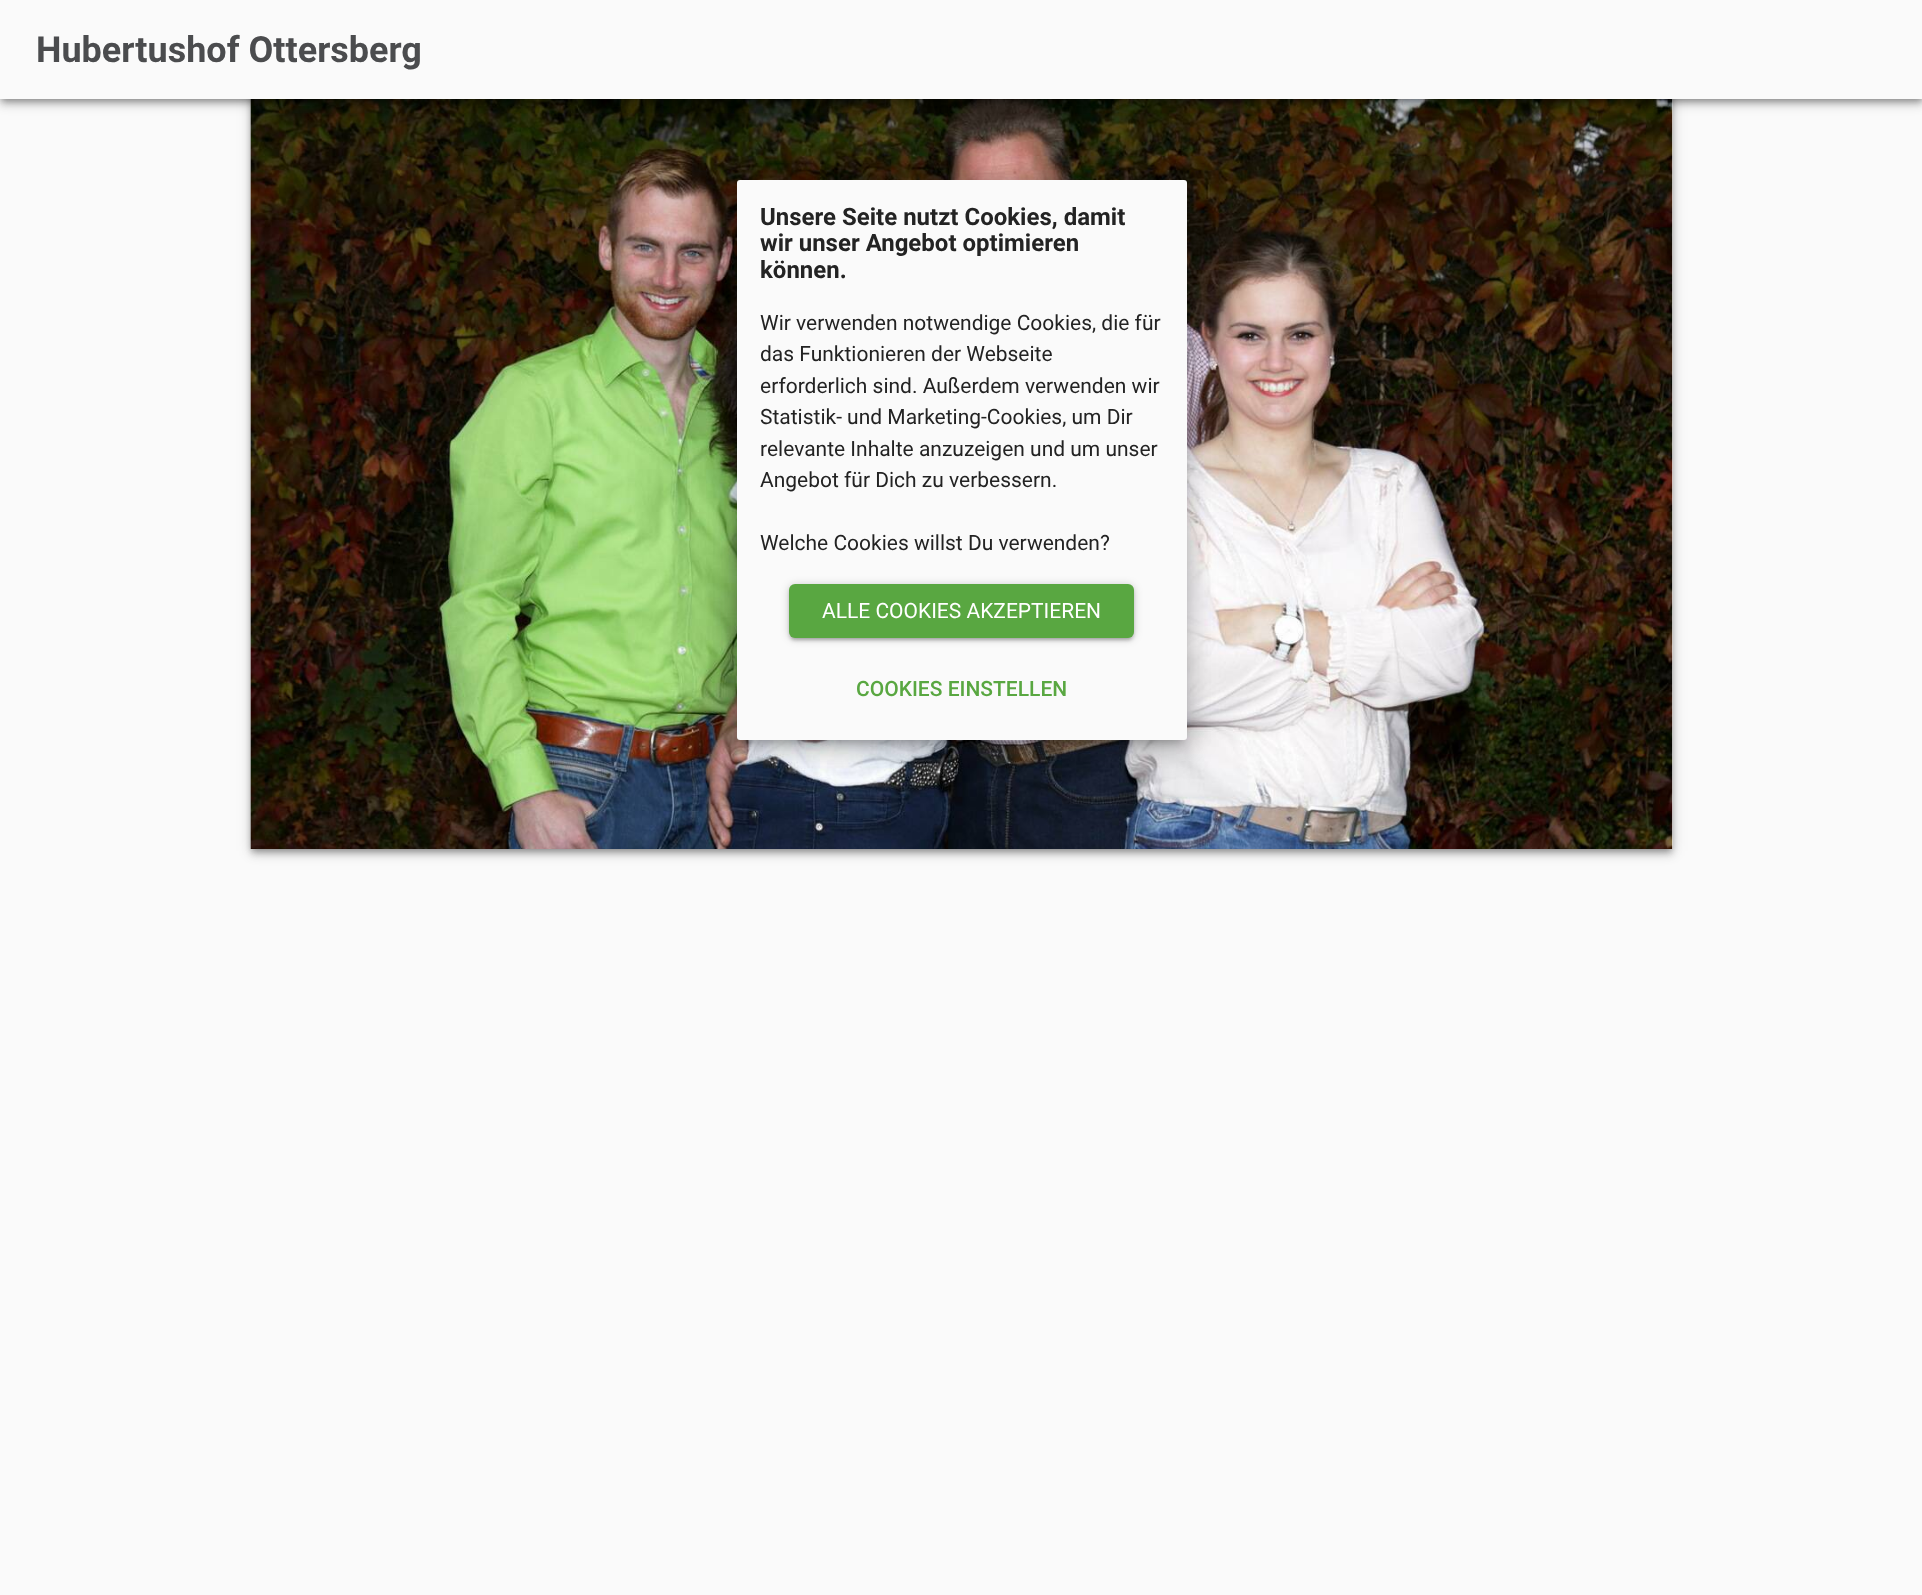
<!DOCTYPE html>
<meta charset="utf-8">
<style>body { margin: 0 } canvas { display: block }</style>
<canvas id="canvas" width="1922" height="1595"></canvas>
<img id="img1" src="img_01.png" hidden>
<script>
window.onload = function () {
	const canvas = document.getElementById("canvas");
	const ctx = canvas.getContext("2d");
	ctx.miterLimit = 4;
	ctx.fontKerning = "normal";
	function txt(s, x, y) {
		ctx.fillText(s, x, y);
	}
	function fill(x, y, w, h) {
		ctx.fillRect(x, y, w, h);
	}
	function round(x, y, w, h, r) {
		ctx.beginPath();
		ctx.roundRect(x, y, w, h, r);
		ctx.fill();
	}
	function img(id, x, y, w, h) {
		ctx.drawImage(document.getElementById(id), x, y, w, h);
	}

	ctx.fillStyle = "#FAFAFA";
	fill(0, 0, 1922, 1595);
	ctx.fillStyle = "rgba(0, 0, 0, 0.3)";
	ctx.filter = "blur(3px)";
	ctx.beginPath();
	ctx.rect(252, 5, 1419, 846);
	ctx.fill();
	ctx.filter = "none";
	ctx.fillStyle = "rgba(0, 0, 0, 0.12)";
	ctx.filter = "blur(7.5px)";
	ctx.beginPath();
	ctx.rect(251, 2, 1422, 849);
	ctx.fill();
	ctx.filter = "none";
	ctx.fillStyle = "rgba(0, 0, 0, 0.14)";
	ctx.filter = "blur(4px)";
	ctx.beginPath();
	ctx.rect(251, 6, 1422, 849);
	ctx.fill();
	ctx.filter = "none";
	ctx.fillStyle = "#FAFAFA";
	fill(1672, 99, 1, 750);
	img("img1", 250, 99, 1423, 750);
	ctx.fillStyle = "rgba(0, 0, 0, 0.3)";
	ctx.filter = "blur(3px)";
	ctx.beginPath();
	ctx.rect(2, 5, 1920, 96);
	ctx.fill();
	ctx.filter = "none";
	ctx.fillStyle = "rgba(0, 0, 0, 0.12)";
	ctx.filter = "blur(7.5px)";
	ctx.beginPath();
	ctx.rect(0, 2, 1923, 99);
	ctx.fill();
	ctx.filter = "none";
	ctx.fillStyle = "rgba(0, 0, 0, 0.14)";
	ctx.filter = "blur(4px)";
	ctx.beginPath();
	ctx.rect(0, 6, 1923, 99);
	ctx.fill();
	ctx.filter = "none";
	ctx.fillStyle = "#FAFAFA";
	fill(0, 0, 1922, 99);
	ctx.fillStyle = "rgba(0, 0, 0, 0.2)";
	ctx.filter = "blur(4px)";
	ctx.beginPath();
	ctx.rect(741, 192, 441, 551);
	ctx.fill();
	ctx.filter = "none";
	ctx.fillStyle = "rgba(0, 0, 0, 0.12)";
	ctx.filter = "blur(10.5px)";
	ctx.beginPath();
	ctx.roundRect(734, 182, 456, 565, 6);
	ctx.fill();
	ctx.filter = "none";
	ctx.fillStyle = "rgba(0, 0, 0, 0.14)";
	ctx.filter = "blur(13px)";
	ctx.beginPath();
	ctx.roundRect(734, 189, 456, 566, 6);
	ctx.fill();
	ctx.filter = "none";
	ctx.fillStyle = "#FAFAFA";
	round(737, 180, 450, 560, 3);
	ctx.fillStyle = "rgba(0, 0, 0, 0.2)";
	ctx.filter = "blur(4px)";
	ctx.beginPath();
	ctx.roundRect(789, 585, 345, 54, 6);
	ctx.fill();
	ctx.filter = "none";
	ctx.fillStyle = "rgba(0, 0, 0, 0.12)";
	ctx.filter = "blur(1px)";
	ctx.beginPath();
	ctx.roundRect(792, 591, 339, 48, 3);
	ctx.fill();
	ctx.filter = "none";
	ctx.fillStyle = "rgba(0, 0, 0, 0.14)";
	ctx.filter = "blur(1.5px)";
	ctx.beginPath();
	ctx.roundRect(789, 587, 345, 54, 6);
	ctx.fill();
	ctx.filter = "none";
	ctx.fillStyle = "#59A741";
	round(789, 584, 345, 54, 6);
	ctx.font = "bold 36px Roboto";
	ctx.fillStyle = "#4B4C4E";
	txt("Hubertushof Ottersberg", 36, 62);
	ctx.font = "bold 24px Roboto";
	ctx.fillStyle = "#232323";
	txt("Unsere Seite nutzt Cookies, damit", 760, 225);
	txt("wir unser Angebot optimieren", 760, 251);
	txt("können.", 760, 278);
	ctx.font = "21px Roboto";
	txt("Wir verwenden notwendige Cookies, die für", 760, 330);
	txt("das Funktionieren der Webseite", 760, 361);
	txt("erforderlich sind. Außerdem verwenden wir", 760, 393);
	txt("Statistik- und Marketing-Cookies, um Dir", 760, 424);
	txt("relevante Inhalte anzuzeigen und um unser", 760, 456);
	txt("Angebot für Dich zu verbessern.", 760, 487);
	txt("Welche Cookies willst Du verwenden?", 760, 550);
	ctx.fillStyle = "#FFFFFF";
	txt("ALLE COOKIES AKZEPTIEREN", 822, 618);
	ctx.font = "500 21px Roboto";
	ctx.fillStyle = "#59A741";
	txt("COOKIES EINSTELLEN", 856, 696);
};
</script>
